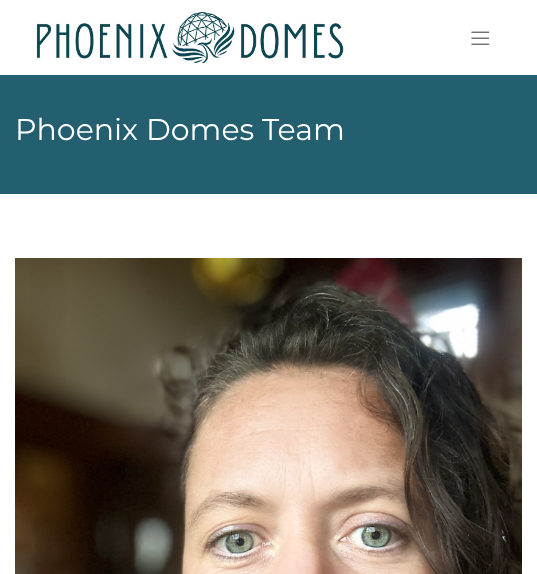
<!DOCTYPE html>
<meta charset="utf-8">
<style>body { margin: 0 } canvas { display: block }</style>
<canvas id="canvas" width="537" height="574"></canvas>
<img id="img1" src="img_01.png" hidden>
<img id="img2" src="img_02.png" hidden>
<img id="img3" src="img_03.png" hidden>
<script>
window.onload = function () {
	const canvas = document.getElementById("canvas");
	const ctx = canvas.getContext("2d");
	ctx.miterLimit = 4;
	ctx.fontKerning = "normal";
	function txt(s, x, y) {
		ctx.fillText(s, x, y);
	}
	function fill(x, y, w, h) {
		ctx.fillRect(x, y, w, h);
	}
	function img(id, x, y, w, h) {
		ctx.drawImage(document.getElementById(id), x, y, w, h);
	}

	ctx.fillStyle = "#FFFFFF";
	fill(0, 0, 537, 574);
	img("img1", 36, 11, 308, 53);
	img("img2", 471, 31, 19, 14);
	ctx.fillStyle = "#245F70";
	fill(0, 75, 537, 119);
	img("img3", 15, 258, 507, 316);
	ctx.font = "30px Montserrat";
	ctx.fillStyle = "#FFFFFF";
	txt("Phoenix Domes Team", 15, 140);
};
</script>
